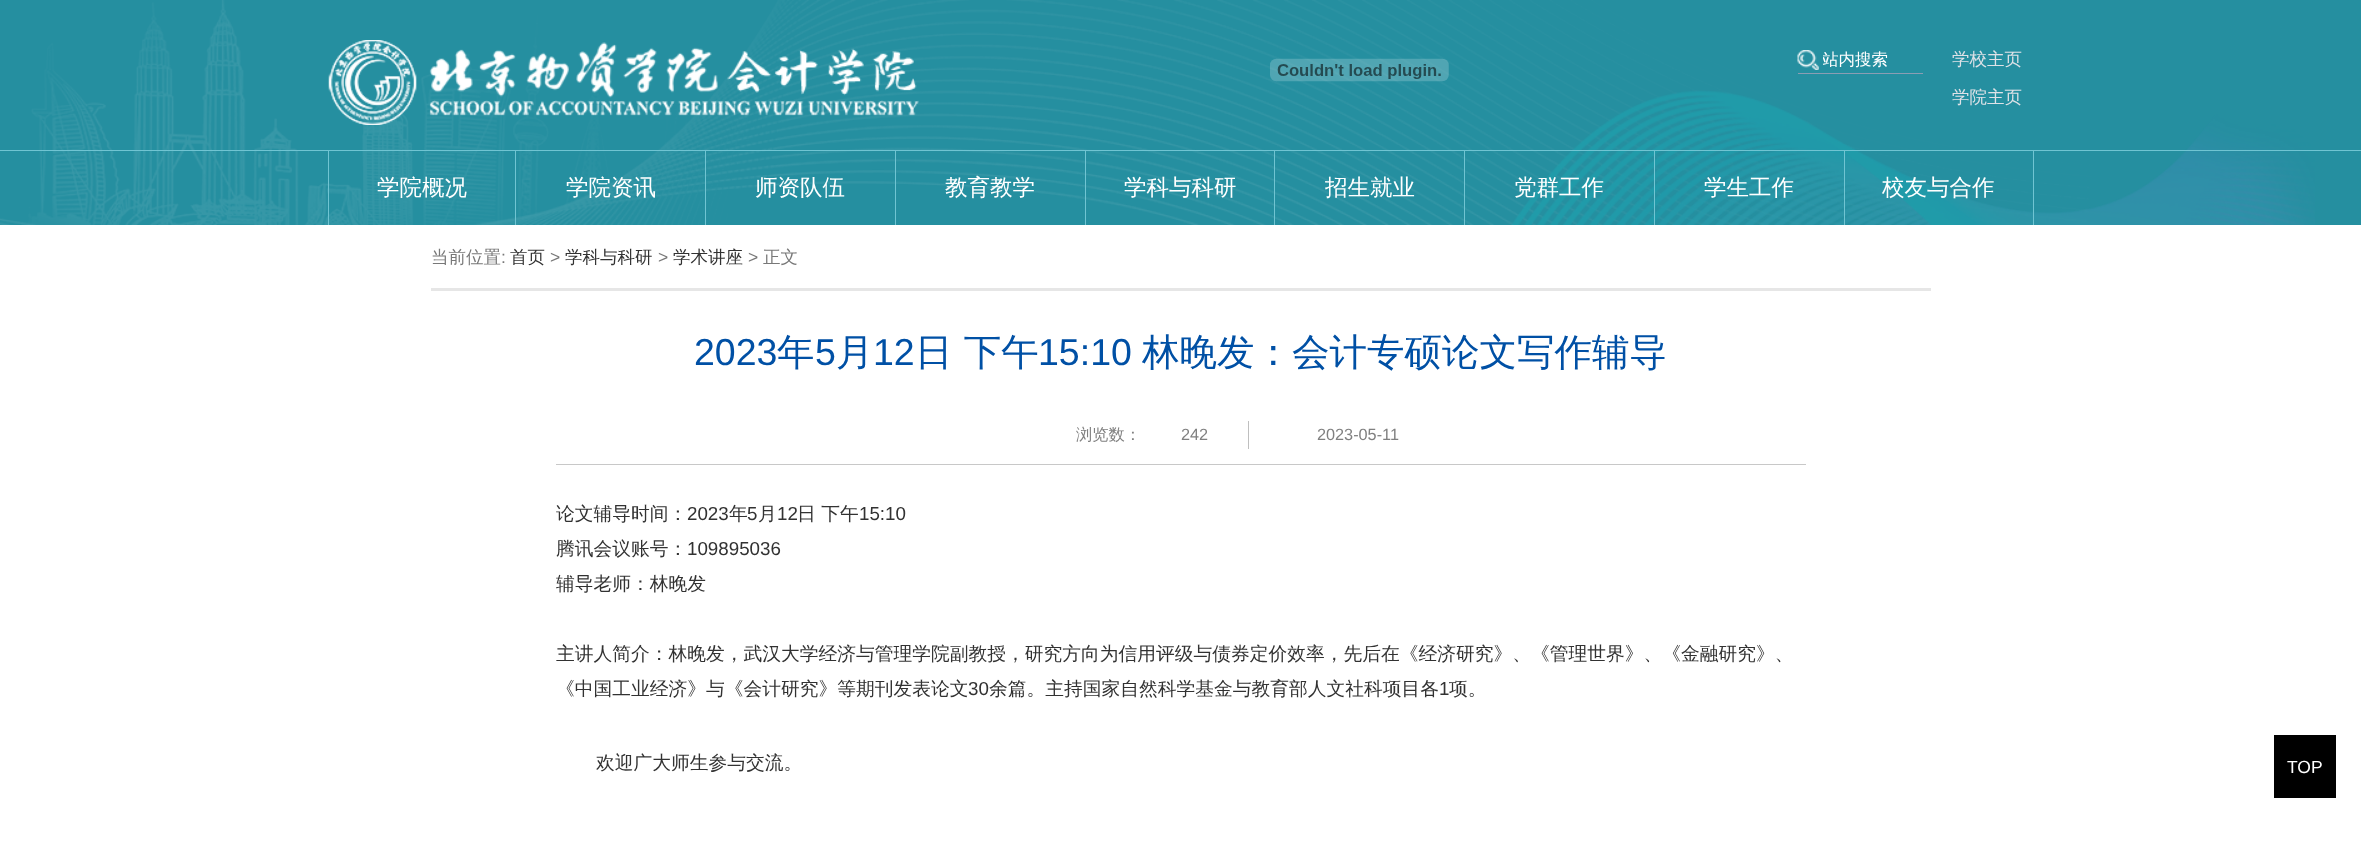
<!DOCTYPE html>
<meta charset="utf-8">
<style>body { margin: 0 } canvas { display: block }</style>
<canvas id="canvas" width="2361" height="847"></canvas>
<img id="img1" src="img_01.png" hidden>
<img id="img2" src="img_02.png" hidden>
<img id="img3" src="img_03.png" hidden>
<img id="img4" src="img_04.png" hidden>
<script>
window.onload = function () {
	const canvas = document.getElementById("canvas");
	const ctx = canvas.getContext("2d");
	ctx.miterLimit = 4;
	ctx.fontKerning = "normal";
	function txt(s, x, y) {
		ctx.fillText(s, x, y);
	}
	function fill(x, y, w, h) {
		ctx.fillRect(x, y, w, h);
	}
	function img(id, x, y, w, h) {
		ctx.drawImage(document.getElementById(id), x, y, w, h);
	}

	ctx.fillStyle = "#FFFFFF";
	fill(0, 0, 2361, 847);
	ctx.fillStyle = "#258FA0";
	fill(0, 0, 2361, 225);
	img("img1", 0, 0, 2315, 225);
	img("img2", 328, 40, 591, 85);
	img("img3", 1270, 58, 179, 24);
	ctx.fillStyle = "#8B9DB3";
	fill(1798, 73, 125, 1);
	img("img4", 1797, 50, 22, 20);
	ctx.fillStyle = "#70C4D2";
	fill(0, 150, 2361, 1);
	fill(515, 151, 1, 74);
	fill(328, 151, 1, 74);
	fill(705, 151, 1, 74);
	fill(895, 151, 1, 74);
	fill(1085, 151, 1, 74);
	fill(1274, 151, 1, 74);
	fill(1464, 151, 1, 74);
	fill(1654, 151, 1, 74);
	fill(1844, 151, 1, 74);
	fill(2033, 151, 1, 74);
	ctx.fillStyle = "#E6E6E6";
	fill(431, 288, 1500, 3);
	ctx.fillStyle = "#C8C8C8";
	fill(556, 464, 1250, 1);
	ctx.fillStyle = "#BFBFBF";
	fill(1248, 421, 1, 28);
	ctx.fillStyle = "#000000";
	fill(2274, 735, 62, 63);
	ctx.save();
	ctx.beginPath();
	ctx.rect(1823, 48, 100, 25);
	ctx.clip();
	ctx.font = "500 16.5px WenQuanYi Zen Hei";
	ctx.fillStyle = "#FFFFFF";
	txt("站内搜索", 1822, 65);
	ctx.restore();
	ctx.font = "500 17.5px WenQuanYi Zen Hei";
	ctx.fillStyle = "#DFE2E7";
	txt("学校主页", 1952, 65);
	txt("学院主页", 1952, 103);
	ctx.font = "500 22.5px WenQuanYi Zen Hei";
	ctx.fillStyle = "#FFFFFF";
	txt("学院概况", 377, 195);
	txt("学院资讯", 566, 195);
	txt("师资队伍", 755, 195);
	txt("教育教学", 945, 195);
	txt("学科与科研", 1124, 195);
	txt("招生就业", 1325, 195);
	txt("党群工作", 1514, 195);
	txt("学生工作", 1704, 195);
	txt("校友与合作", 1882, 195);
	ctx.font = "500 17.5px WenQuanYi Zen Hei";
	ctx.fillStyle = "#787878";
	txt("当前位置", 431, 263);
	ctx.font = "17.5px Liberation Sans";
	txt(":", 501, 263);
	ctx.font = "500 17.5px WenQuanYi Zen Hei";
	ctx.fillStyle = "#323232";
	txt("首页", 510, 263);
	ctx.font = "17.5px Liberation Sans";
	ctx.fillStyle = "#787878";
	txt(">", 550, 263);
	ctx.font = "500 17.5px WenQuanYi Zen Hei";
	ctx.fillStyle = "#323232";
	txt("学科与科研", 565, 263);
	ctx.font = "17.5px Liberation Sans";
	ctx.fillStyle = "#787878";
	txt(">", 658, 263);
	ctx.font = "500 17.5px WenQuanYi Zen Hei";
	ctx.fillStyle = "#323232";
	txt("学术讲座", 673, 263);
	ctx.font = "17.5px Liberation Sans";
	ctx.fillStyle = "#787878";
	txt(">", 748, 263);
	ctx.font = "500 17.5px WenQuanYi Zen Hei";
	txt("正文", 763, 263);
	ctx.font = "37.5px Liberation Sans";
	ctx.fillStyle = "#0050A5";
	txt("2023", 694, 365);
	ctx.font = "500 37.5px WenQuanYi Zen Hei";
	txt("年", 777, 365);
	ctx.font = "37.5px Liberation Sans";
	txt("5", 815, 365);
	ctx.font = "500 37.5px WenQuanYi Zen Hei";
	txt("月", 836, 365);
	ctx.font = "37.5px Liberation Sans";
	txt("12", 873, 365);
	ctx.font = "500 37.5px WenQuanYi Zen Hei";
	txt("日 下午", 915, 365);
	ctx.font = "37.5px Liberation Sans";
	txt("15:10", 1038, 365);
	ctx.font = "500 37.5px WenQuanYi Zen Hei";
	txt("林晚发：会计专硕论文写作辅导", 1142, 365);
	ctx.font = "500 16.25px WenQuanYi Zen Hei";
	ctx.fillStyle = "#808080";
	txt("浏览数：", 1076, 440);
	ctx.font = "16.25px Liberation Sans";
	txt("242", 1181, 440);
	txt("2023-05-11", 1317, 440);
	ctx.font = "500 18.75px WenQuanYi Zen Hei";
	ctx.fillStyle = "#323232";
	txt("论文辅导时间：", 556, 520);
	ctx.font = "18.75px Liberation Sans";
	txt("2023", 687, 520);
	ctx.font = "500 18.75px WenQuanYi Zen Hei";
	txt("年", 729, 520);
	ctx.font = "18.75px Liberation Sans";
	txt("5", 747, 520);
	ctx.font = "500 18.75px WenQuanYi Zen Hei";
	txt("月", 758, 520);
	ctx.font = "18.75px Liberation Sans";
	txt("12", 777, 520);
	ctx.font = "500 18.75px WenQuanYi Zen Hei";
	txt("日 下午", 797, 520);
	ctx.font = "18.75px Liberation Sans";
	txt("15:10", 859, 520);
	ctx.font = "500 18.75px WenQuanYi Zen Hei";
	txt("腾讯会议账号：", 556, 555);
	ctx.font = "18.75px Liberation Sans";
	txt("109895036", 687, 555);
	ctx.save();
	ctx.beginPath();
	ctx.rect(556, 496, 1250, 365);
	ctx.clip();
	ctx.font = "500 18.75px WenQuanYi Zen Hei";
	txt("辅导老师：林晚发", 556, 590);
	ctx.restore();
	ctx.font = "500 18.75px WenQuanYi Zen Hei";
	txt("主讲人简介：林晚发，武汉大学经济与管理学院副教授，研究方向为信用评级与债券定价效率，先后在《经济研究》、《管理世界》、《金融研究》、", 556, 660);
	txt("《中国工业经济》与《会计研究》等期刊发表论文", 556, 695);
	ctx.font = "18.75px Liberation Sans";
	txt("30", 968, 695);
	ctx.font = "500 18.75px WenQuanYi Zen Hei";
	txt("余篇。主持国家自然科学基金与教育部人文社科项目各", 989, 695);
	ctx.font = "18.75px Liberation Sans";
	txt("1", 1439, 695);
	ctx.font = "500 18.75px WenQuanYi Zen Hei";
	txt("项。", 1449, 695);
	txt("欢迎广大师生参与交流。", 596, 769);
	ctx.font = "17.5px Liberation Sans";
	ctx.fillStyle = "#FFFFFF";
	txt("TOP", 2287, 773);
};
</script>
